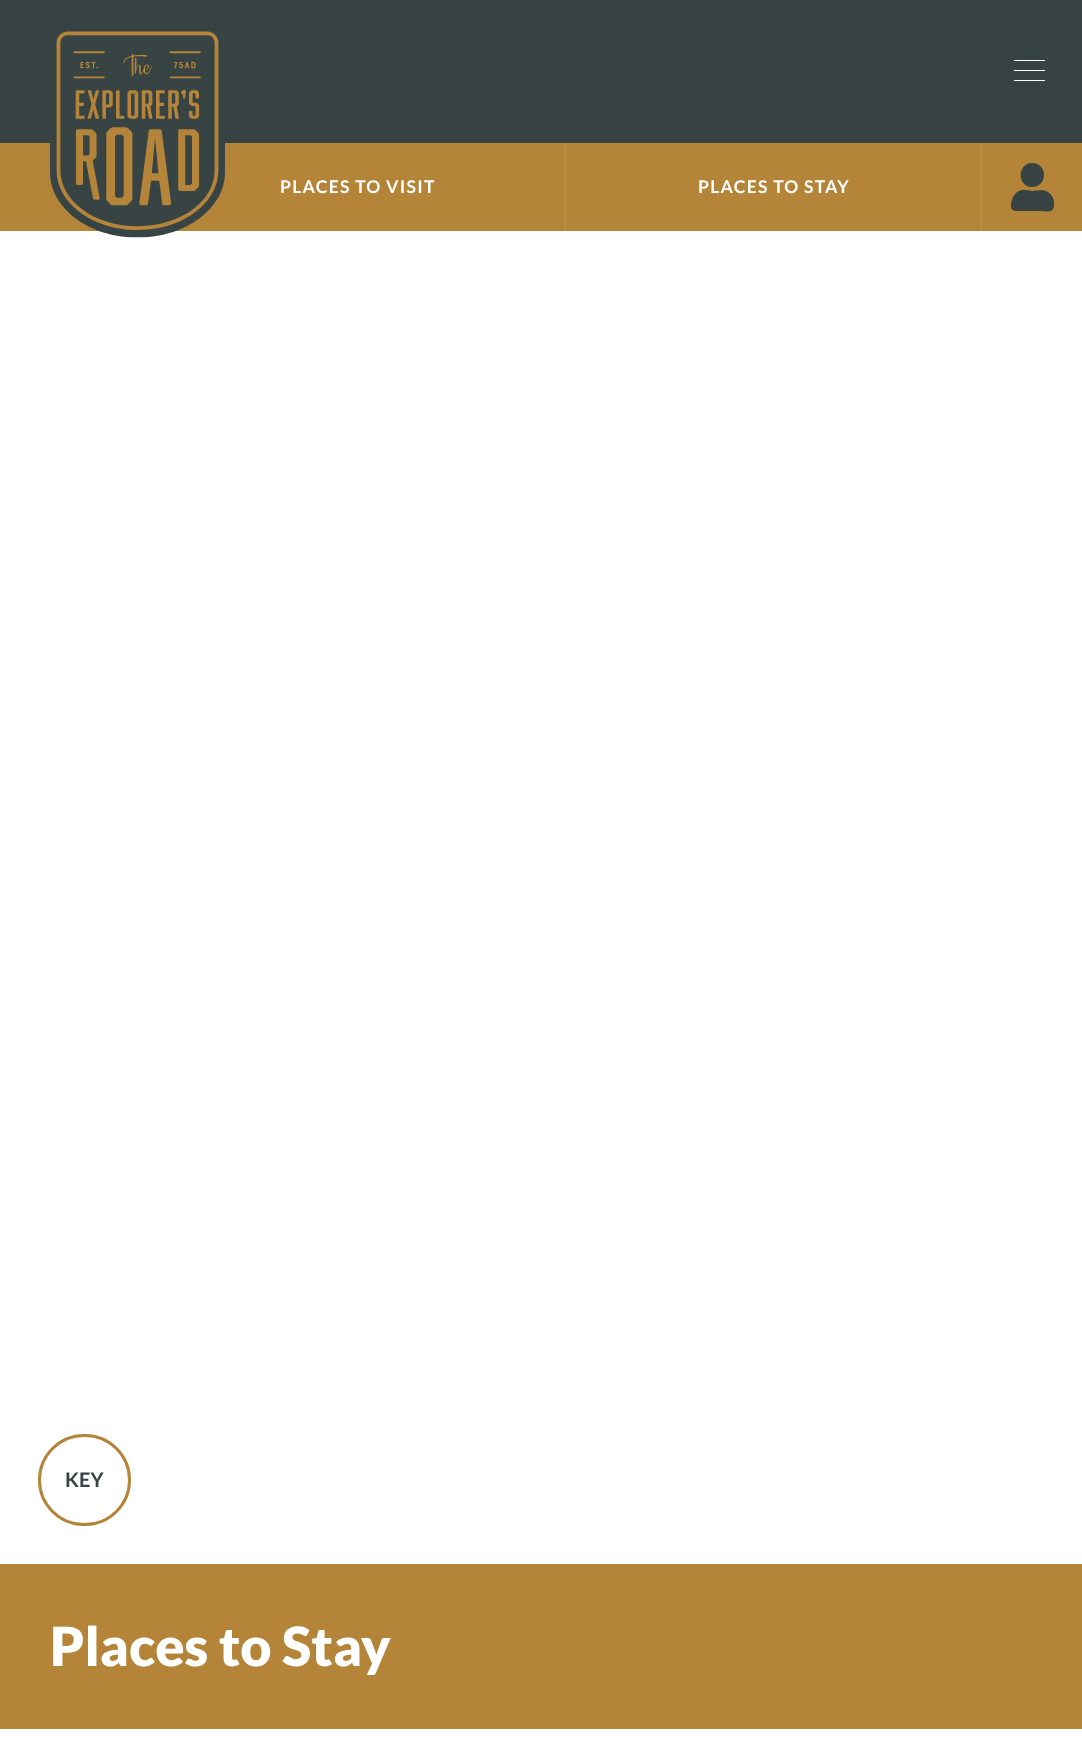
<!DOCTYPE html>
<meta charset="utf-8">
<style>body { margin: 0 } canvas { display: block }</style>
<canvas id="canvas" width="1082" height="1754"></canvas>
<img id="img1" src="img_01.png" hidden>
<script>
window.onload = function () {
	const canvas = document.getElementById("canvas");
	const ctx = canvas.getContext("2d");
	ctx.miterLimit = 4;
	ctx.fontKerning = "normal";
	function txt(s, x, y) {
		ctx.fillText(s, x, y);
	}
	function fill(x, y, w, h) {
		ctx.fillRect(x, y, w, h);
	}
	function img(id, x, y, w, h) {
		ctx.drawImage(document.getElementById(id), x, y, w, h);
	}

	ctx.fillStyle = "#FFFFFF";
	fill(0, 0, 1082, 1754);
	ctx.fillStyle = "#374343";
	fill(0, 0, 1082, 143);
	ctx.fillStyle = "#B48438";
	fill(0, 143, 1082, 88);
	img("img1", 50, 31, 175, 207);
	ctx.fillStyle = "#FFFFFF";
	fill(1014, 70, 31, 1);
	fill(1014, 60, 31, 1);
	fill(1014, 80, 31, 1);
	ctx.fillStyle = "#BD9350";
	fill(565, 143, 1, 88);
	fill(981, 143, 1, 88);
	ctx.fillStyle = "#384444";
	ctx.beginPath();
	ctx.moveTo(1032, 187);
	ctx.bezierCurveTo(1048, 187, 1048, 163, 1032, 163);
	ctx.bezierCurveTo(1017, 163, 1017, 187, 1032, 187);
	ctx.closePath();
	ctx.moveTo(1041, 190);
	ctx.lineTo(1032, 191);
	ctx.bezierCurveTo(1030, 191, 1028, 190, 1026, 190);
	ctx.bezierCurveTo(1016, 188, 1010, 199, 1011, 208);
	ctx.bezierCurveTo(1012, 210, 1014, 211, 1016, 211);
	ctx.lineTo(1038, 211);
	ctx.bezierCurveTo(1046, 211, 1054, 214, 1054, 205);
	ctx.bezierCurveTo(1054, 202, 1054, 200, 1053, 198);
	ctx.bezierCurveTo(1051, 193, 1046, 190, 1041, 190);
	ctx.closePath();
	ctx.fill();
	ctx.beginPath();
	ctx.roundRect(39.5, 1435.5, 90, 89, 44.5);
	ctx.strokeStyle = "#B48438";
	ctx.lineWidth = 3;
	ctx.stroke();
	ctx.fillStyle = "#B48438";
	fill(0, 1564, 1082, 165);
	ctx.letterSpacing = "1.25px";
	ctx.font = "bold 17.5px Lato";
	ctx.fillStyle = "#FFFFFF";
	txt("PLACES TO VISIT", 280, 193);
	txt("PLACES TO STAY", 698, 193);
	ctx.letterSpacing = "0px";
	ctx.font = "bold 20px Lato";
	ctx.fillStyle = "#374343";
	txt("KEY", 65, 1487);
	ctx.font = "900 54px Lato";
	ctx.fillStyle = "#FFFFFF";
	txt("Places to Stay", 50, 1666);
};
</script>
